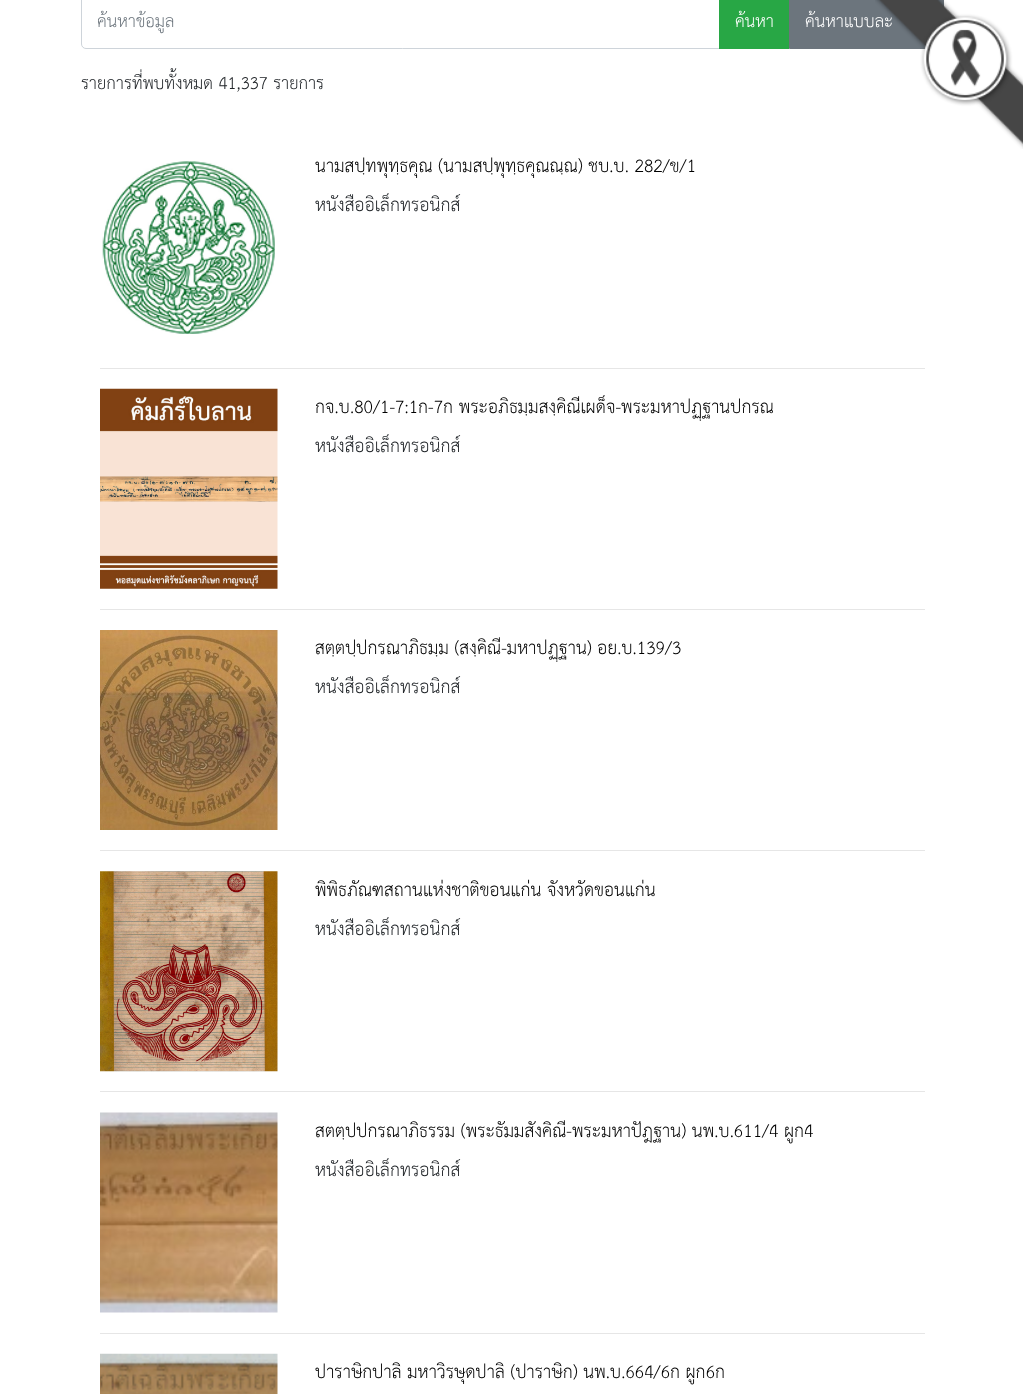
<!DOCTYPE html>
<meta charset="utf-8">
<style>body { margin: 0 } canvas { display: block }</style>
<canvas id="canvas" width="1023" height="1394"></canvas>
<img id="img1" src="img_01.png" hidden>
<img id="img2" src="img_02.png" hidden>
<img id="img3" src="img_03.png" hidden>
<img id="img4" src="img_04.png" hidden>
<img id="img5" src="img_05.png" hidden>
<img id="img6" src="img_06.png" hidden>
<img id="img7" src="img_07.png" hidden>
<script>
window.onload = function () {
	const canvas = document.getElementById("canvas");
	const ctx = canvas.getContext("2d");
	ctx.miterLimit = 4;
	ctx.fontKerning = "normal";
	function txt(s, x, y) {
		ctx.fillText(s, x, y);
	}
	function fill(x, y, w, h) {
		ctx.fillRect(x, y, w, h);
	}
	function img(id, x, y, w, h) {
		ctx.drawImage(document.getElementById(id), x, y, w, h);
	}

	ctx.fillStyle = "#FFFFFF";
	fill(0, 0, 1023, 1394);
	ctx.beginPath();
	ctx.moveTo(86, -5.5);
	ctx.lineTo(719.5, -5.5);
	ctx.lineTo(719.5, 48.5);
	ctx.lineTo(86, 48.5);
	ctx.bezierCurveTo(83.5, 48.5, 81.5, 46.5, 81.5, 44);
	ctx.lineTo(81.5, -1);
	ctx.bezierCurveTo(81.5, -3.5, 83.5, -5.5, 86, -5.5);
	ctx.closePath();
	ctx.strokeStyle = "#CED4DA";
	ctx.stroke();
	ctx.fillStyle = "#28A745";
	fill(719, 0, 70, 49);
	ctx.fillStyle = "#6C757D";
	ctx.beginPath();
	ctx.rect(789.5, -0.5, 154, 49);
	ctx.fill();
	ctx.strokeStyle = "#6C757D";
	ctx.stroke();
	img("img1", 102, 161, 173, 173);
	ctx.fillStyle = "#E6E6E6";
	fill(100, 368, 825, 1);
	img("img2", 100, 388, 178, 201);
	fill(100, 609, 825, 1);
	img("img3", 100, 630, 178, 200);
	fill(100, 850, 825, 1);
	img("img4", 100, 871, 178, 201);
	fill(100, 1091, 825, 1);
	img("img5", 100, 1112, 178, 201);
	fill(100, 1333, 825, 1);
	img("img6", 100, 1353, 178, 41);
	ctx.save();
	ctx.beginPath();
	ctx.rect(98, 5, 606, 34);
	ctx.clip();
	ctx.font = "25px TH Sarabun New";
	ctx.fillStyle = "#6C757D";
	txt("ค้นหาข้อมูล", 97, 27);
	ctx.restore();
	ctx.font = "25px TH Sarabun New";
	ctx.fillStyle = "#FFFFFF";
	txt("ค้นหา", 735, 27);
	txt("ค้นหาแบบละ", 805, 27);
	ctx.fillStyle = "#212529";
	txt("รายการที่พบทั้งหมด 41,337 รายการ", 81, 89);
	ctx.font = "26px TH Sarabun New";
	ctx.fillStyle = "#000000";
	txt("นามสปฺทพุทฺธคุณ (นามสปฺพุทฺธคุณณฺณ) ชบ.บ. 282/ข/1", 315, 172);
	ctx.fillStyle = "#212529";
	txt("หนังสืออิเล็กทรอนิกส์", 315, 211);
	ctx.fillStyle = "#000000";
	txt("กจ.บ.80/1-7:1ก-7ก พระอภิธมฺมสงฺคิณีเผด็จ-พระมหาปฏฺฐานปกรณ", 315, 413);
	ctx.fillStyle = "#212529";
	txt("หนังสืออิเล็กทรอนิกส์", 315, 452);
	ctx.fillStyle = "#000000";
	txt("สตฺตปฺปกรณาภิธมฺม (สงฺคิณี-มหาปฏฺฐาน) อย.บ.139/3", 315, 654);
	ctx.fillStyle = "#212529";
	txt("หนังสืออิเล็กทรอนิกส์", 315, 693);
	ctx.fillStyle = "#000000";
	txt("พิพิธภัณฑสถานแห่งชาติขอนแก่น จังหวัดขอนแก่น", 315, 896);
	ctx.fillStyle = "#212529";
	txt("หนังสืออิเล็กทรอนิกส์", 315, 935);
	ctx.fillStyle = "#000000";
	txt("สตตฺปปกรณาภิธรรม (พระธัมมสังคิณี-พระมหาปัฎฐาน) นพ.บ.611/4 ผูก4", 315, 1137);
	ctx.fillStyle = "#212529";
	txt("หนังสืออิเล็กทรอนิกส์", 315, 1176);
	ctx.fillStyle = "#000000";
	txt("ปาราษิกปาลิ มหาวิรษุดปาลิ (ปาราษิก) นพ.บ.664/6ก ผูก6ก", 315, 1378);
	img("img7", 875, 0, 148, 149);
};
</script>
